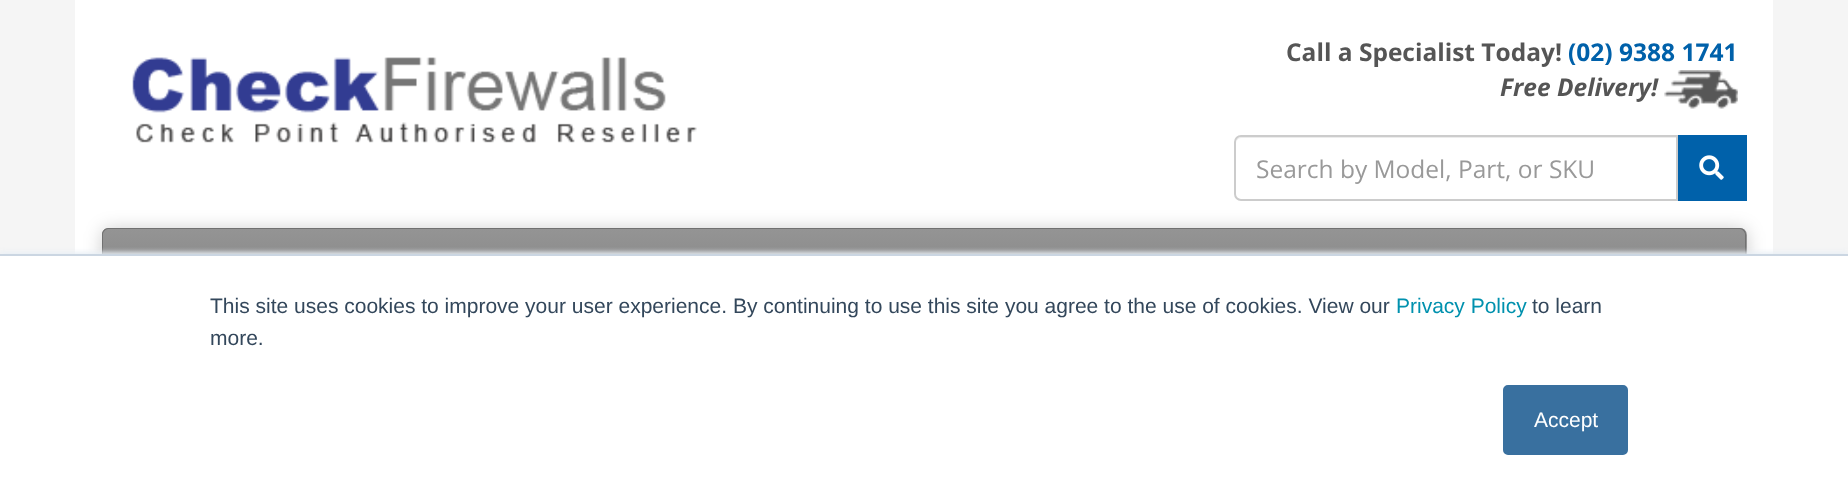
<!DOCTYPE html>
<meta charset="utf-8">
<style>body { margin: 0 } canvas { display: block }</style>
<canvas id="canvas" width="1848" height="500"></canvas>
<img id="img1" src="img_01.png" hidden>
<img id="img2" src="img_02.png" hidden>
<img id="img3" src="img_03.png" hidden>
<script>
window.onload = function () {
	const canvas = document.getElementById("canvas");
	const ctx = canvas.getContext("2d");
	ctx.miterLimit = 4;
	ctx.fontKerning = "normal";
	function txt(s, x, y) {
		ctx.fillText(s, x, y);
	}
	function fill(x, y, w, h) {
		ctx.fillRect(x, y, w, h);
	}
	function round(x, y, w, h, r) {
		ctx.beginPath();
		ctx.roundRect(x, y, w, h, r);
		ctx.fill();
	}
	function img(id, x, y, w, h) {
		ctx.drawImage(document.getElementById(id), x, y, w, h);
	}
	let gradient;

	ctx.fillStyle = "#F5F5F5";
	fill(0, 0, 1848, 500);
	ctx.fillStyle = "#FFFFFF";
	fill(75, 0, 1698, 254);
	img("img1", 132, 57, 565, 86);
	img("img2", 1664, 70, 74, 39);
	ctx.fillStyle = "#ECECEC";
	ctx.beginPath();
	ctx.moveTo(1241, 138);
	ctx.lineTo(1676, 138);
	ctx.lineTo(1676, 200);
	ctx.lineTo(1677, 200);
	ctx.lineTo(1677, 137);
	ctx.lineTo(1241, 137);
	ctx.bezierCurveTo(1237, 137, 1236, 141, 1236, 144);
	ctx.bezierCurveTo(1236, 141, 1238, 138, 1241, 138);
	ctx.closePath();
	ctx.fill();
	ctx.beginPath();
	ctx.roundRect(1235, 136, 442, 64, [6, 0, 0, 6]);
	ctx.strokeStyle = "#CCCCCC";
	ctx.lineWidth = 2;
	ctx.stroke();
	ctx.fillStyle = "#0061AA";
	fill(1678, 135, 69, 66);
	img("img3", 1699, 155, 25, 25);
	ctx.fillStyle = "rgba(0, 0, 0, 0.2)";
	ctx.filter = "blur(9px)";
	ctx.beginPath();
	ctx.roundRect(102, 229, 1645, 90, 7);
	ctx.fill();
	ctx.filter = "none";
	ctx.fillStyle = "#949494";
	round(102, 228, 1645, 89, 7);
	ctx.save();
	ctx.beginPath();
	ctx.roundRect(102, 228, 1645, 89, 7);
	ctx.clip();
	gradient = ctx.createLinearGradient(924, 229, 924, 317);
	gradient.addColorStop(0, "#949494");
	gradient.addColorStop(0.6, "#878787");
	gradient.addColorStop(1, "#717171");
	ctx.fillStyle = gradient;
	fill(103, 229, 1642, 25);
	ctx.restore();
	ctx.fillStyle = "#717171";
	ctx.beginPath();
	ctx.moveTo(108, 228);
	ctx.lineTo(1740, 228);
	ctx.bezierCurveTo(1743, 228, 1746, 231, 1746, 234);
	ctx.lineTo(1746, 310);
	ctx.bezierCurveTo(1746, 314, 1743, 317, 1740, 317);
	ctx.lineTo(108, 317);
	ctx.bezierCurveTo(105, 317, 102, 314, 102, 310);
	ctx.lineTo(102, 234);
	ctx.bezierCurveTo(102, 231, 105, 228, 108, 228);
	ctx.closePath();
	ctx.moveTo(108, 229);
	ctx.lineTo(1740, 229);
	ctx.bezierCurveTo(1742, 229, 1745, 232, 1745, 234);
	ctx.lineTo(1745, 310);
	ctx.bezierCurveTo(1745, 314, 1742, 317, 1740, 317);
	ctx.lineTo(108, 317);
	ctx.bezierCurveTo(106, 317, 103, 314, 103, 310);
	ctx.lineTo(103, 234);
	ctx.bezierCurveTo(103, 232, 106, 229, 108, 229);
	ctx.closePath();
	ctx.fill("evenodd");
	ctx.fillStyle = "#EAF0F6";
	ctx.filter = "blur(2.5px)";
	ctx.beginPath();
	ctx.rect(0, 252, 1848, 247);
	ctx.fill();
	ctx.filter = "none";
	ctx.fillStyle = "#FFFFFF";
	fill(0, 256, 1848, 244);
	ctx.fillStyle = "#CBD6E2";
	fill(0, 254, 1848, 2);
	ctx.fillStyle = "#39709F";
	ctx.beginPath();
	ctx.roundRect(1504, 386, 123, 68, 4);
	ctx.fill();
	ctx.strokeStyle = "#39709F";
	ctx.stroke();
	ctx.font = "bold 24.5px Open Sans";
	ctx.fillStyle = "#555555";
	txt("Call a Specialist Today!", 1286, 61);
	ctx.fillStyle = "#0061AA";
	txt("(02) 9388 1741", 1568, 61);
	ctx.font = "italic bold 24.5px Open Sans";
	ctx.fillStyle = "#555555";
	txt("Free Delivery!", 1500, 96);
	ctx.font = "24.5px Open Sans";
	ctx.fillStyle = "#999999";
	txt("Search by Model, Part, or SKU", 1256, 178);
	ctx.font = "21px Liberation Sans";
	ctx.fillStyle = "#33475B";
	txt("This site uses cookies to improve your user experience. By continuing to use this site you agree to the use of cookies. View our", 210, 313);
	ctx.fillStyle = "#0091AE";
	txt("Privacy Policy", 1396, 313);
	ctx.fillStyle = "#33475B";
	txt("to learn", 1532, 313);
	txt("more.", 210, 345);
	ctx.fillStyle = "#FFFFFF";
	txt("Accept", 1534, 427);
};
</script>
